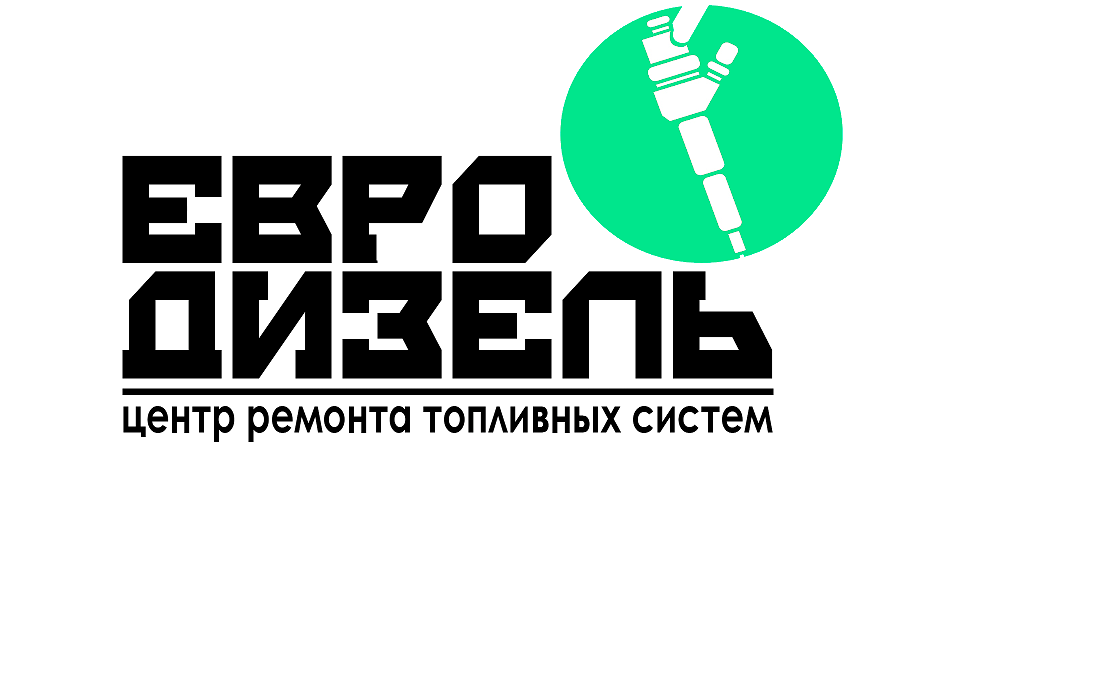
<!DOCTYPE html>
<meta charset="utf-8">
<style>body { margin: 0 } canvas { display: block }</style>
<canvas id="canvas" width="1111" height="693"></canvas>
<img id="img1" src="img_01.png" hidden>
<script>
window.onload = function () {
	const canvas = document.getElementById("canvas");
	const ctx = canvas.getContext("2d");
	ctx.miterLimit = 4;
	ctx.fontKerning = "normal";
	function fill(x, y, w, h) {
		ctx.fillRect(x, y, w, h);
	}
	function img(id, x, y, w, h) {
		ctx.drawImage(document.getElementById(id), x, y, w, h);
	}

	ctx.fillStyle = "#FFFFFF";
	fill(0, 0, 1111, 693);
	img("img1", 122, 5, 721, 437);
};
</script>
